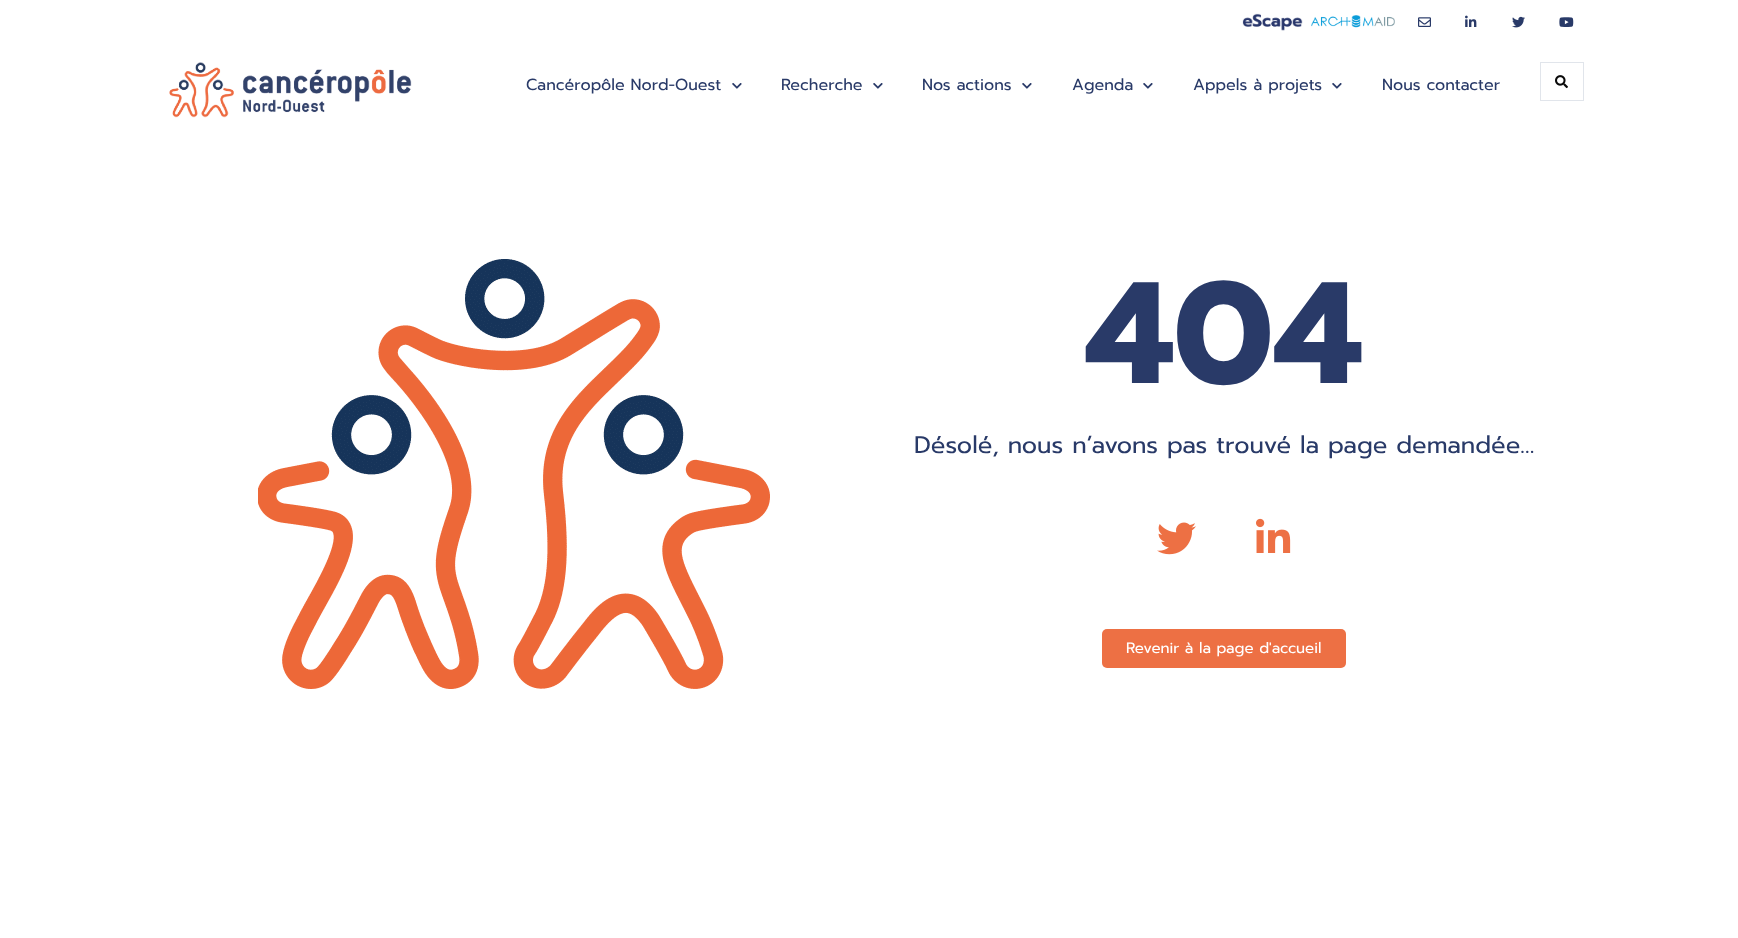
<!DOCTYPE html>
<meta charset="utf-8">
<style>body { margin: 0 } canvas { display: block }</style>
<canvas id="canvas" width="1738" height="938"></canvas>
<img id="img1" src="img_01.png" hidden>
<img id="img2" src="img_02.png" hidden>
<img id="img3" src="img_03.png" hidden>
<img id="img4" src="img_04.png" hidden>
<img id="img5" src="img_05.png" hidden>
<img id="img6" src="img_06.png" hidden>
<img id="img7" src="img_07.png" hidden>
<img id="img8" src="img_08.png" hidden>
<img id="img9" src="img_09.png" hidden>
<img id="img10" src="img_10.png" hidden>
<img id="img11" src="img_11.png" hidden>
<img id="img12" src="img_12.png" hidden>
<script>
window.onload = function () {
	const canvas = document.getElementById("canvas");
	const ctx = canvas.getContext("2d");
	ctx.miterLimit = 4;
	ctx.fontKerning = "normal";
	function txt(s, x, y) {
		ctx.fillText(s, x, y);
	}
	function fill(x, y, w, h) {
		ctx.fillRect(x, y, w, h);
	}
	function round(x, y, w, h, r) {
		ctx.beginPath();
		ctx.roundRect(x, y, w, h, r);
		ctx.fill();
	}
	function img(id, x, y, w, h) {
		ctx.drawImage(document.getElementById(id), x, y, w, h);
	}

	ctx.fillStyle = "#FFFFFF";
	fill(0, 0, 1738, 938);
	img("img1", 1242, 13, 61, 18);
	img("img2", 1311, 15, 84, 13);
	img("img3", 1418, 17, 13, 10);
	img("img4", 1465, 15, 12, 12);
	img("img5", 1512, 16, 13, 12);
	img("img6", 1559, 17, 15, 10);
	img("img7", 169, 62, 243, 56);
	img("img8", 732, 83, 10, 6);
	img("img8", 873, 83, 10, 6);
	img("img8", 1022, 83, 10, 6);
	img("img8", 1143, 83, 10, 6);
	img("img8", 1332, 83, 10, 6);
	ctx.strokeStyle = "#E1E5EB";
	ctx.strokeRect(1540.5, 62.5, 43, 38);
	img("img9", 1555, 75, 13, 14);
	img("img10", 258, 259, 512, 430);
	img("img11", 1157, 522, 39, 33);
	img("img12", 1256, 518, 35, 35);
	ctx.fillStyle = "#ED7044";
	round(1102, 629, 244, 39, 5);
	ctx.font = "16px Prompt";
	ctx.fillStyle = "#293A68";
	txt("Cancéropôle Nord-Ouest", 526, 90);
	txt("Recherche", 781, 90);
	txt("Nos actions", 922, 90);
	txt("Agenda", 1072, 90);
	txt("Appels à projets", 1193, 90);
	txt("Nous contacter", 1382, 90);
	ctx.font = "bold 144px Prompt";
	txt("404", 1085, 383);
	ctx.font = "24px Prompt";
	txt("Désolé, nous n’avons pas trouvé la page demandée…", 914, 453);
	ctx.font = "15px Prompt";
	ctx.fillStyle = "#FFFFFF";
	txt("Revenir à la page d'accueil", 1126, 653);
};
</script>
